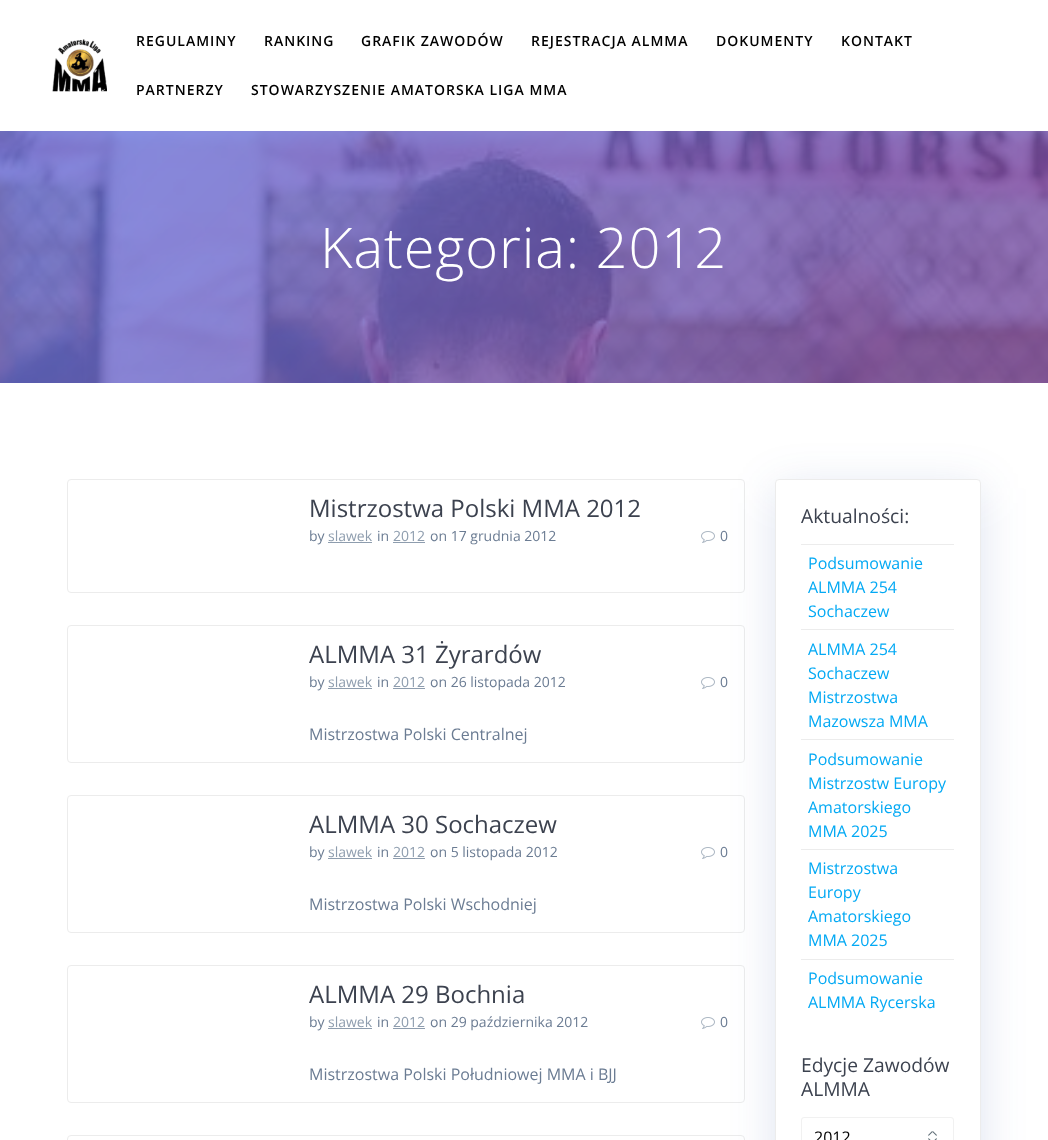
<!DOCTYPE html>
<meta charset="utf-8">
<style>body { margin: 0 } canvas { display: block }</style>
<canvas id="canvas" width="1048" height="1140"></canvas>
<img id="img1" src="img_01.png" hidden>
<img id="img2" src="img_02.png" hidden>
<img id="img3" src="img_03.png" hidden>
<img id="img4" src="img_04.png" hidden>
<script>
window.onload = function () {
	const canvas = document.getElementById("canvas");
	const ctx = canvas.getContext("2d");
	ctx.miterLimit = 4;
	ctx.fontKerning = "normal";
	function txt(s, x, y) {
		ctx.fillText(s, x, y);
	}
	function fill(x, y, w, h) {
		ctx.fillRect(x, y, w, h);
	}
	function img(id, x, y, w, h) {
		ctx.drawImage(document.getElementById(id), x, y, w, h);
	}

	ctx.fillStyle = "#FFFFFF";
	fill(0, 0, 1048, 1140);
	img("img1", 52, 39, 55, 53);
	img("img2", 0, 131, 1048, 252);
	ctx.beginPath();
	ctx.roundRect(67.5, 479.5, 677, 113, 3.5);
	ctx.strokeStyle = "#ECECEC";
	ctx.stroke();
	ctx.fillStyle = "#8E9DAE";
	fill(328, 542, 44, 1);
	fill(393, 542, 32, 1);
	img("img3", 701, 531, 14, 12);
	ctx.beginPath();
	ctx.roundRect(67.5, 625.5, 677, 137, 3.5);
	ctx.stroke();
	fill(328, 688, 44, 1);
	fill(393, 688, 32, 1);
	img("img3", 701, 677, 14, 12);
	ctx.beginPath();
	ctx.roundRect(67.5, 795.5, 677, 137, 3.5);
	ctx.stroke();
	fill(328, 858, 44, 1);
	fill(393, 858, 32, 1);
	img("img3", 701, 847, 14, 12);
	ctx.beginPath();
	ctx.roundRect(67.5, 965.5, 677, 137, 3.5);
	ctx.stroke();
	fill(328, 1028, 44, 1);
	fill(393, 1028, 32, 1);
	img("img3", 701, 1017, 14, 12);
	ctx.beginPath();
	ctx.roundRect(67.5, 1135.5, 677, 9, 3.5);
	ctx.stroke();
	ctx.save();
	ctx.beginPath();
	ctx.moveTo(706, 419);
	ctx.lineTo(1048, 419);
	ctx.lineTo(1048, 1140);
	ctx.lineTo(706, 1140);
	ctx.closePath();
	ctx.moveTo(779, 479);
	ctx.lineTo(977, 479);
	ctx.bezierCurveTo(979, 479, 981, 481, 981, 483);
	ctx.lineTo(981, 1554);
	ctx.bezierCurveTo(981, 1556, 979, 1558, 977, 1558);
	ctx.lineTo(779, 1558);
	ctx.bezierCurveTo(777, 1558, 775, 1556, 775, 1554);
	ctx.lineTo(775, 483);
	ctx.bezierCurveTo(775, 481, 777, 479, 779, 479);
	ctx.closePath();
	ctx.clip("evenodd");
	ctx.fillStyle = "rgba(35, 69, 152, 0.15)";
	ctx.filter = "blur(22.5px)";
	ctx.beginPath();
	ctx.roundRect(775, 488, 206, 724, 4);
	ctx.fill();
	ctx.filter = "none";
	ctx.restore();
	ctx.beginPath();
	ctx.roundRect(775.5, 479.5, 205, 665, 3.5);
	ctx.stroke();
	ctx.fillStyle = "#ECECEC";
	fill(801, 544, 153, 1);
	fill(801, 629, 153, 1);
	fill(801, 739, 153, 1);
	fill(801, 849, 153, 1);
	fill(801, 959, 153, 1);
	img("img4", 928, 1131, 9, 9);
	ctx.beginPath();
	ctx.roundRect(801.5, 1117.5, 152, 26, 2.5);
	ctx.strokeStyle = "#F1F1F1";
	ctx.stroke();
	ctx.letterSpacing = "1px";
	ctx.font = "600 14px Open Sans";
	ctx.fillStyle = "#000000";
	txt("REGULAMINY", 136, 46);
	txt("RANKING", 264, 46);
	txt("GRAFIK ZAWODÓW", 361, 46);
	txt("REJESTRACJA ALMMA", 531, 46);
	txt("DOKUMENTY", 716, 46);
	txt("KONTAKT", 841, 46);
	txt("PARTNERZY", 136, 95);
	txt("STOWARZYSZENIE AMATORSKA LIGA MMA", 251, 95);
	ctx.letterSpacing = "0.9px";
	ctx.font = "300 56px Open Sans";
	ctx.fillStyle = "#FFFFFF";
	txt("Kategoria: 2012", 320, 268);
	ctx.letterSpacing = "0px";
	ctx.font = "24px Open Sans";
	ctx.fillStyle = "#3C424F";
	txt("Mistrzostwa Polski MMA 2012", 309, 517);
	ctx.font = "14px Open Sans";
	ctx.fillStyle = "#6B7C93";
	txt("by", 309, 541);
	ctx.fillStyle = "#8E9DAE";
	txt("slawek", 328, 541);
	ctx.fillStyle = "#6B7C93";
	txt("in", 377, 541);
	ctx.fillStyle = "#8E9DAE";
	txt("2012", 393, 541);
	ctx.fillStyle = "#6B7C93";
	txt("on 17 grudnia 2012", 430, 541);
	txt("0", 720, 541);
	ctx.font = "24px Open Sans";
	ctx.fillStyle = "#3C424F";
	txt("ALMMA 31 Żyrardów", 309, 663);
	ctx.font = "14px Open Sans";
	ctx.fillStyle = "#6B7C93";
	txt("by", 309, 687);
	ctx.fillStyle = "#8E9DAE";
	txt("slawek", 328, 687);
	ctx.fillStyle = "#6B7C93";
	txt("in", 377, 687);
	ctx.fillStyle = "#8E9DAE";
	txt("2012", 393, 687);
	ctx.fillStyle = "#6B7C93";
	txt("on 26 listopada 2012", 430, 687);
	txt("0", 720, 687);
	ctx.font = "16px Open Sans";
	txt("Mistrzostwa Polski Centralnej", 309, 740);
	ctx.font = "24px Open Sans";
	ctx.fillStyle = "#3C424F";
	txt("ALMMA 30 Sochaczew", 309, 833);
	ctx.font = "14px Open Sans";
	ctx.fillStyle = "#6B7C93";
	txt("by", 309, 857);
	ctx.fillStyle = "#8E9DAE";
	txt("slawek", 328, 857);
	ctx.fillStyle = "#6B7C93";
	txt("in", 377, 857);
	ctx.fillStyle = "#8E9DAE";
	txt("2012", 393, 857);
	ctx.fillStyle = "#6B7C93";
	txt("on 5 listopada 2012", 430, 857);
	txt("0", 720, 857);
	ctx.font = "16px Open Sans";
	txt("Mistrzostwa Polski Wschodniej", 309, 910);
	ctx.font = "24px Open Sans";
	ctx.fillStyle = "#3C424F";
	txt("ALMMA 29 Bochnia", 309, 1003);
	ctx.font = "14px Open Sans";
	ctx.fillStyle = "#6B7C93";
	txt("by", 309, 1027);
	ctx.fillStyle = "#8E9DAE";
	txt("slawek", 328, 1027);
	ctx.fillStyle = "#6B7C93";
	txt("in", 377, 1027);
	ctx.fillStyle = "#8E9DAE";
	txt("2012", 393, 1027);
	ctx.fillStyle = "#6B7C93";
	txt("on 29 października 2012", 430, 1027);
	txt("0", 720, 1027);
	ctx.font = "16px Open Sans";
	txt("Mistrzostwa Polski Południowej MMA i BJJ", 309, 1080);
	ctx.font = "19.25px Open Sans";
	ctx.fillStyle = "#3C424F";
	txt("Aktualności:", 801, 523);
	ctx.font = "16px Open Sans";
	ctx.fillStyle = "#03A9F4";
	txt("Podsumowanie", 808, 569);
	txt("ALMMA 254", 808, 593);
	txt("Sochaczew", 808, 617);
	txt("ALMMA 254", 808, 655);
	txt("Sochaczew", 808, 679);
	txt("Mistrzostwa", 808, 703);
	txt("Mazowsza MMA", 808, 727);
	txt("Podsumowanie", 808, 765);
	txt("Mistrzostw Europy", 808, 789);
	txt("Amatorskiego", 808, 813);
	txt("MMA 2025", 808, 837);
	txt("Mistrzostwa", 808, 874);
	txt("Europy", 808, 898);
	txt("Amatorskiego", 808, 922);
	txt("MMA 2025", 808, 946);
	txt("Podsumowanie", 808, 984);
	txt("ALMMA Rycerska", 808, 1008);
	ctx.font = "19.25px Open Sans";
	ctx.fillStyle = "#3C424F";
	txt("Edycje Zawodów", 801, 1072);
	txt("ALMMA", 801, 1096);
	ctx.font = "16px Open Sans";
	ctx.fillStyle = "#000000";
	txt("2012", 814, 1143);
};
</script>
